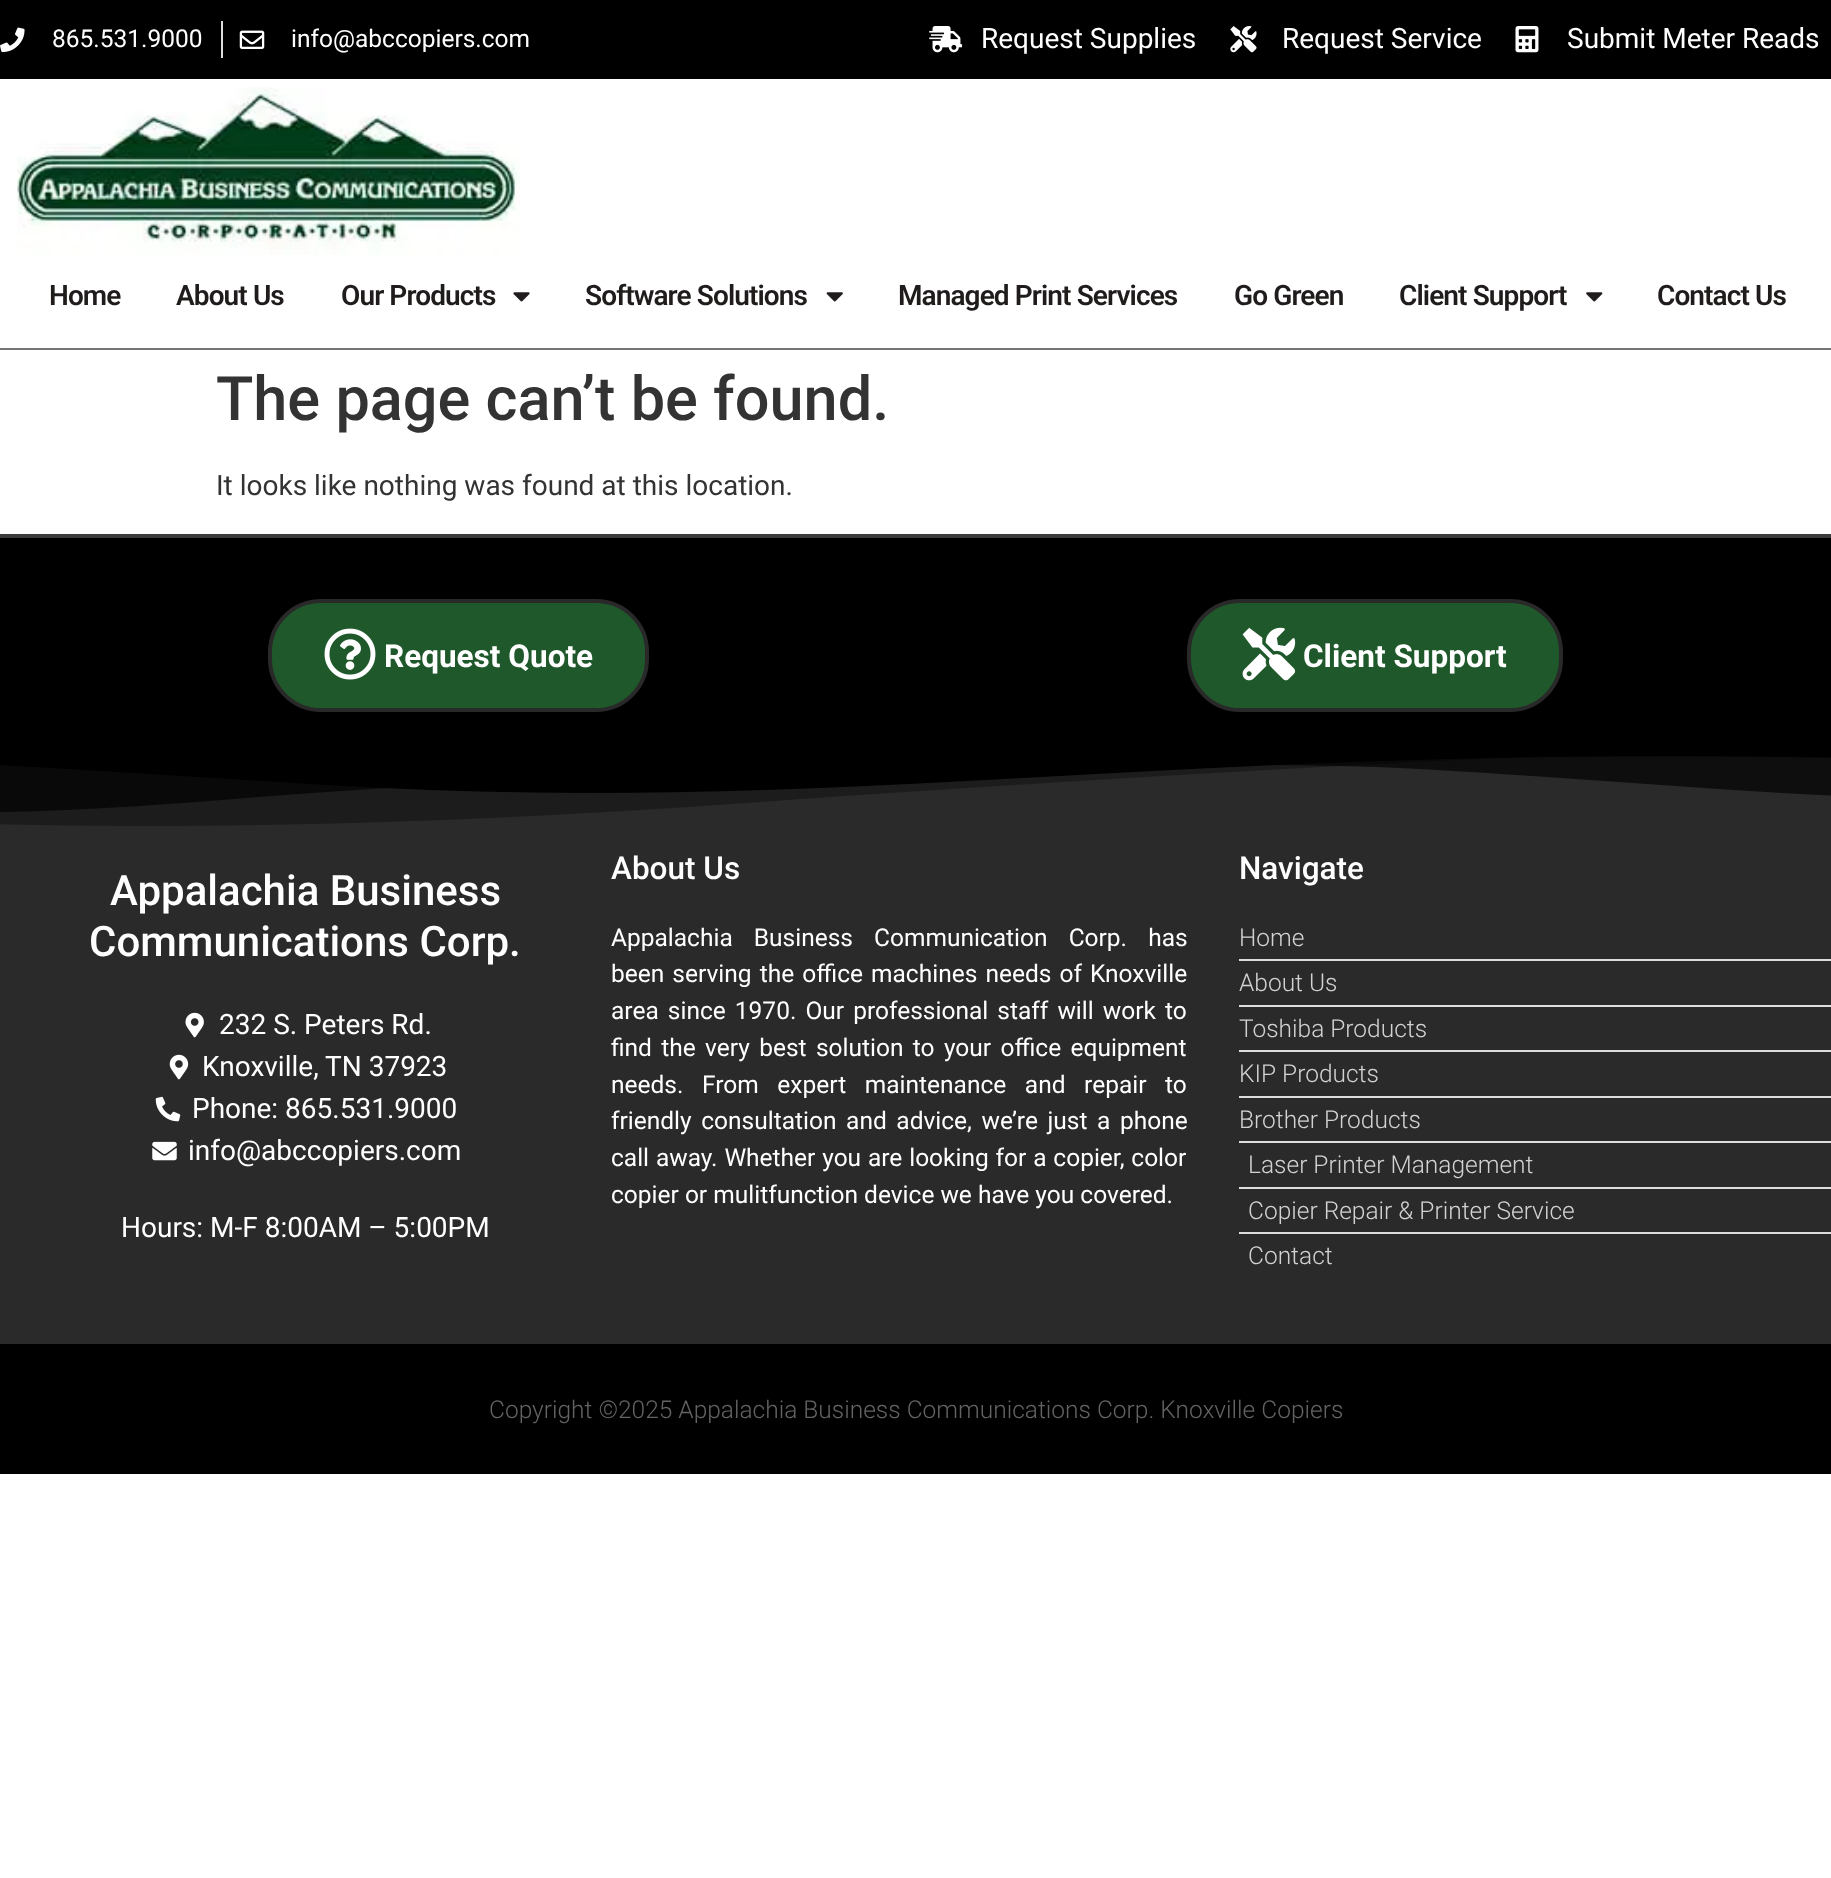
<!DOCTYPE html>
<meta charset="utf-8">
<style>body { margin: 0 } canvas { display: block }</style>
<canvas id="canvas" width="1831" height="1878"></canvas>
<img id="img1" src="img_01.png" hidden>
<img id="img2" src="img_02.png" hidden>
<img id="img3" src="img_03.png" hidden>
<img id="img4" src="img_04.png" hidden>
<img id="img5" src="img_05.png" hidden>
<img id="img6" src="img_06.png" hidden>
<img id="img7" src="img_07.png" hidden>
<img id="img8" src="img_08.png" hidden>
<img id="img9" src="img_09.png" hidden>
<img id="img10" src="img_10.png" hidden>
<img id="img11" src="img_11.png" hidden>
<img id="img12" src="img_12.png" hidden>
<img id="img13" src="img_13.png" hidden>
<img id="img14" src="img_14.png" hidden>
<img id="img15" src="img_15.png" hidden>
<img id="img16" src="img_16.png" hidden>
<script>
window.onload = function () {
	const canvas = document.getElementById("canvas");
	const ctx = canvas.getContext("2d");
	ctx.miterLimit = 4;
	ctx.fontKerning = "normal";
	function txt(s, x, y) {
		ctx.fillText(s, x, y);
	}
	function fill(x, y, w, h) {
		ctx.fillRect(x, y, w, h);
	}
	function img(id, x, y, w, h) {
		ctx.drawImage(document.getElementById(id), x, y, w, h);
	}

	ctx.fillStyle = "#FFFFFF";
	fill(0, 0, 1831, 1878);
	ctx.fillStyle = "#000000";
	fill(0, 0, 1831, 79);
	img("img1", 0, 27, 25, 26);
	ctx.fillStyle = "#DDDDDD";
	fill(221, 21, 2, 37);
	img("img2", 239, 30, 26, 19);
	img("img3", 929, 26, 34, 27);
	img("img4", 1230, 26, 27, 27);
	img("img5", 1515, 26, 24, 27);
	img("img6", 17, 87, 503, 168);
	ctx.fillStyle = "#757575";
	fill(0, 348, 1831, 2);
	img("img7", 513, 292, 17, 10);
	img("img8", 826, 292, 17, 10);
	img("img9", 1586, 292, 17, 10);
	ctx.fillStyle = "#000000";
	fill(0, 538, 1831, 209);
	ctx.fillStyle = "#3C3C3C";
	fill(0, 534, 1831, 4);
	ctx.fillStyle = "#1F582B";
	ctx.beginPath();
	ctx.roundRect(270, 601, 377, 109, 51);
	ctx.fill();
	ctx.strokeStyle = "#292929";
	ctx.lineWidth = 4;
	ctx.stroke();
	img("img10", 324, 628, 52, 52);
	ctx.beginPath();
	ctx.roundRect(1189, 601, 372, 109, 51);
	ctx.fill();
	ctx.stroke();
	img("img11", 1242, 627, 54, 54);
	ctx.fillStyle = "#2A2A2A";
	fill(0, 756, 1831, 588);
	img("img12", 0, 747, 1831, 79);
	img("img13", 185, 1012, 19, 26);
	img("img14", 169, 1054, 20, 26);
	img("img15", 155, 1096, 26, 26);
	img("img16", 152, 1141, 25, 20);
	ctx.fillStyle = "#DDDDDD";
	fill(1239, 959, 592, 2);
	fill(1239, 1005, 592, 2);
	fill(1239, 1050, 592, 2);
	fill(1239, 1096, 592, 2);
	fill(1239, 1141, 592, 2);
	fill(1239, 1187, 592, 2);
	fill(1239, 1232, 592, 2);
	ctx.fillStyle = "#000000";
	fill(0, 1344, 1831, 130);
	ctx.font = "24.5px Roboto";
	ctx.fillStyle = "#FFFFFF";
	txt("865.531.9000", 52, 47);
	txt("info@abccopiers.com", 291, 47);
	ctx.font = "28px Roboto";
	txt("Request Supplies", 981, 48);
	txt("Request Service", 1282, 48);
	txt("Submit Meter Reads", 1567, 48);
	ctx.letterSpacing = "-0.9px";
	ctx.font = "600 28px Roboto";
	ctx.fillStyle = "#201C1C";
	txt("Home", 49, 305);
	txt("About Us", 176, 305);
	txt("Our Products", 341, 305);
	txt("Software Solutions", 585, 305);
	txt("Managed Print Services", 898, 305);
	txt("Go Green", 1234, 305);
	txt("Client Support", 1399, 305);
	txt("Contact Us", 1657, 305);
	ctx.letterSpacing = "0px";
	ctx.font = "500 61.25px Roboto";
	ctx.fillStyle = "#333333";
	txt("The page can’t be found.", 216, 420);
	ctx.font = "28px Roboto";
	txt("It looks like nothing was found at this location.", 216, 495);
	ctx.font = "bold 31.5px Roboto";
	ctx.fillStyle = "#FFFFFF";
	txt("Request Quote", 384, 667);
	txt("Client Support", 1303, 667);
	ctx.font = "500 42px Roboto";
	txt("Appalachia Business", 110, 905);
	txt("Communications Corp.", 89, 956);
	ctx.font = "28px Roboto";
	txt("232 S. Peters Rd.", 219, 1034);
	txt("Knoxville, TN 37923", 202, 1076);
	txt("Phone: 865.531.9000", 192, 1118);
	txt("info@abccopiers.com", 188, 1160);
	txt("Hours: M-F 8:00AM – 5:00PM", 121, 1237);
	ctx.font = "500 31.5px Roboto";
	txt("About Us", 611, 879);
	ctx.wordSpacing = "15px";
	ctx.font = "24.5px Roboto";
	txt("Appalachia Business Communication Corp. has", 611, 946);
	ctx.wordSpacing = "2px";
	txt("been serving the office machines needs of Knoxville", 611, 982);
	ctx.wordSpacing = "3px";
	txt("area since 1970. Our professional staff will work to", 611, 1019);
	ctx.wordSpacing = "3.25px";
	txt("find the very best solution to your office equipment", 611, 1056);
	ctx.wordSpacing = "12.5px";
	txt("needs. From expert maintenance and repair to", 611, 1093);
	ctx.wordSpacing = "3.5px";
	txt("friendly consultation and advice, we’re just a phone", 611, 1129);
	ctx.wordSpacing = "0.75px";
	txt("call away. Whether you are looking for a copier, color", 611, 1166);
	ctx.wordSpacing = "0px";
	txt("copier or mulitfunction device we have you covered.", 611, 1203);
	ctx.font = "500 31.5px Roboto";
	txt("Navigate", 1239, 879);
	ctx.font = "300 24.5px Roboto";
	ctx.fillStyle = "#D2D2D2";
	txt("Home", 1239, 946);
	txt("About Us", 1239, 991);
	txt("Toshiba Products", 1239, 1037);
	txt("KIP Products", 1239, 1082);
	txt("Brother Products", 1239, 1128);
	txt("Laser Printer Management", 1248, 1173);
	txt("Copier Repair & Printer Service", 1248, 1219);
	txt("Contact", 1248, 1264);
	ctx.fillStyle = "#636363";
	txt("Copyright ©2025 Appalachia Business Communications Corp. Knoxville Copiers", 489, 1418);
};
</script>
